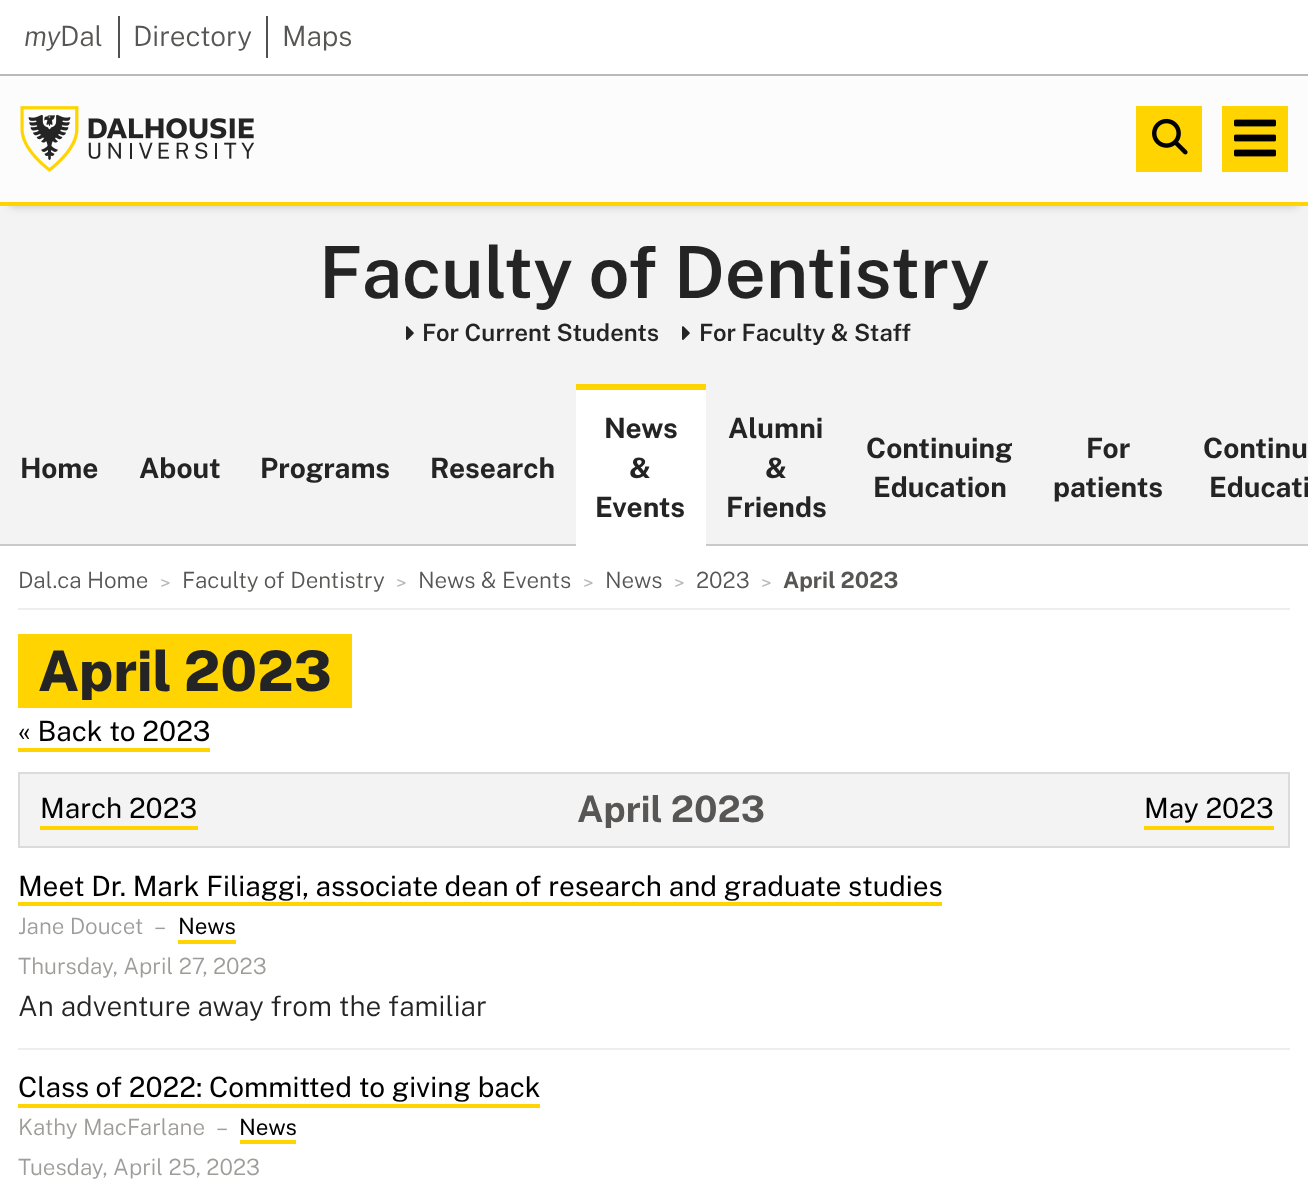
<!DOCTYPE html>
<meta charset="utf-8">
<style>body { margin: 0 } canvas { display: block }</style>
<canvas id="canvas" width="1308" height="1195"></canvas>
<img id="img1" src="img_01.png" hidden>
<img id="img2" src="img_02.png" hidden>
<img id="img3" src="img_03.png" hidden>
<img id="img4" src="img_04.png" hidden>
<script>
window.onload = function () {
	const canvas = document.getElementById("canvas");
	const ctx = canvas.getContext("2d");
	ctx.miterLimit = 4;
	ctx.fontKerning = "normal";
	function txt(s, x, y) {
		ctx.fillText(s, x, y);
	}
	function fill(x, y, w, h) {
		ctx.fillRect(x, y, w, h);
	}
	function img(id, x, y, w, h) {
		ctx.drawImage(document.getElementById(id), x, y, w, h);
	}

	ctx.fillStyle = "#FFFFFF";
	fill(0, 0, 1308, 1195);
	ctx.fillStyle = "#B9B9B9";
	fill(0, 74, 1308, 2);
	ctx.fillStyle = "#52514F";
	fill(118, 16, 2, 42);
	fill(266, 16, 2, 42);
	ctx.fillStyle = "#F3F3F3";
	fill(0, 206, 1308, 338);
	ctx.fillStyle = "rgba(0, 0, 0, 0.2)";
	ctx.filter = "blur(5px)";
	ctx.beginPath();
	ctx.rect(10, 96, 1288, 110);
	ctx.fill();
	ctx.filter = "none";
	ctx.fillStyle = "#FCFCFC";
	fill(0, 76, 1308, 126);
	ctx.fillStyle = "#FFD400";
	fill(0, 202, 1308, 4);
	img("img1", 20, 106, 235, 66);
	fill(1136, 106, 66, 66);
	img("img2", 1152, 118, 36, 37);
	fill(1222, 106, 66, 66);
	img("img3", 1234, 119, 42, 38);
	img("img4", 406, 326, 8, 14);
	img("img4", 682, 326, 8, 14);
	ctx.fillStyle = "#C9C9C9";
	fill(0, 544, 1308, 2);
	ctx.fillStyle = "#FFD400";
	fill(576, 384, 130, 6);
	ctx.fillStyle = "#FFFFFF";
	fill(576, 390, 130, 156);
	ctx.fillStyle = "#EFEEEC";
	fill(18, 608, 1272, 2);
	ctx.fillStyle = "#FFD400";
	fill(18, 634, 334, 74);
	fill(18, 748, 192, 4);
	ctx.fillStyle = "#F3F3F3";
	ctx.beginPath();
	ctx.rect(19, 773, 1270, 74);
	ctx.fill();
	ctx.strokeStyle = "#DBDBDB";
	ctx.lineWidth = 2;
	ctx.stroke();
	ctx.fillStyle = "#FFD400";
	fill(40, 826, 158, 4);
	fill(1144, 826, 130, 4);
	ctx.fillStyle = "#EFEEEC";
	fill(18, 1048, 1272, 2);
	ctx.fillStyle = "#FFD400";
	fill(18, 902, 924, 4);
	fill(178, 940, 58, 4);
	fill(18, 1104, 522, 4);
	fill(240, 1140, 56, 4);
	ctx.font = "italic 300 28px Public Sans";
	ctx.fillStyle = "#575655";
	txt("my", 24, 46);
	ctx.font = "300 28px Public Sans";
	txt("Dal", 60, 46);
	txt("Directory", 133, 46);
	txt("Maps", 282, 46);
	ctx.font = "600 72px Public Sans";
	ctx.fillStyle = "#242424";
	txt("Faculty of Dentistry", 319, 298);
	ctx.font = "600 23.75px Public Sans";
	txt("For Current Students", 422, 341);
	txt("For Faculty & Staff", 699, 341);
	ctx.font = "bold 28px Public Sans";
	txt("Home", 20, 478);
	txt("About", 139, 478);
	txt("Programs", 260, 478);
	txt("Research", 430, 478);
	txt("News", 604, 438);
	txt("&", 629, 478);
	txt("Events", 595, 517);
	txt("Alumni", 728, 438);
	txt("&", 765, 478);
	txt("Friends", 726, 517);
	txt("Continuing", 866, 458);
	txt("Education", 873, 497);
	txt("For", 1086, 458);
	txt("patients", 1053, 497);
	txt("Continu", 1203, 458);
	txt("Educati", 1209, 497);
	ctx.font = "300 22.4px Public Sans";
	ctx.fillStyle = "#575655";
	txt("Dal.ca Home", 18, 588);
	ctx.font = "300 20px Public Sans";
	ctx.fillStyle = "#B9B9B9";
	txt(">", 160, 590);
	ctx.font = "300 22.4px Public Sans";
	ctx.fillStyle = "#575655";
	txt("Faculty of Dentistry", 182, 588);
	ctx.font = "300 20px Public Sans";
	ctx.fillStyle = "#B9B9B9";
	txt(">", 396, 590);
	ctx.font = "300 22.4px Public Sans";
	ctx.fillStyle = "#575655";
	txt("News & Events", 418, 588);
	ctx.font = "300 20px Public Sans";
	ctx.fillStyle = "#B9B9B9";
	txt(">", 583, 590);
	ctx.font = "300 22.4px Public Sans";
	ctx.fillStyle = "#575655";
	txt("News", 605, 588);
	ctx.font = "300 20px Public Sans";
	ctx.fillStyle = "#B9B9B9";
	txt(">", 674, 590);
	ctx.font = "300 22.4px Public Sans";
	ctx.fillStyle = "#575655";
	txt("2023", 696, 588);
	ctx.font = "300 20px Public Sans";
	ctx.fillStyle = "#B9B9B9";
	txt(">", 761, 590);
	ctx.font = "bold 22.4px Public Sans";
	ctx.fillStyle = "#575655";
	txt("April 2023", 783, 588);
	ctx.font = "800 56px Public Sans";
	ctx.fillStyle = "#242424";
	txt("April 2023", 38, 691);
	ctx.font = "28px Public Sans";
	ctx.fillStyle = "#000000";
	txt("« Back to 2023", 18, 741);
	txt("March 2023", 40, 818);
	ctx.font = "bold 36.5px Public Sans";
	ctx.fillStyle = "#575655";
	txt("April 2023", 577, 822);
	ctx.font = "28px Public Sans";
	ctx.fillStyle = "#000000";
	txt("May 2023", 1144, 818);
	txt("Meet Dr. Mark Filiaggi, associate dean of research and graduate studies", 18, 896);
	ctx.font = "300 22.4px Public Sans";
	ctx.fillStyle = "#9E9D9A";
	txt("Jane Doucet", 18, 934);
	txt("–", 154, 934);
	ctx.font = "22.4px Public Sans";
	ctx.fillStyle = "#000000";
	txt("News", 178, 934);
	ctx.font = "300 22.4px Public Sans";
	ctx.fillStyle = "#9E9D9A";
	txt("Thursday, April 27, 2023", 18, 974);
	ctx.font = "300 28px Public Sans";
	ctx.fillStyle = "#242424";
	txt("An adventure away from the familiar", 18, 1016);
	ctx.font = "28px Public Sans";
	ctx.fillStyle = "#000000";
	txt("Class of 2022: Committed to giving back", 18, 1097);
	ctx.font = "300 22.4px Public Sans";
	ctx.fillStyle = "#9E9D9A";
	txt("Kathy MacFarlane", 18, 1135);
	txt("–", 216, 1135);
	ctx.font = "22.4px Public Sans";
	ctx.fillStyle = "#000000";
	txt("News", 239, 1135);
	ctx.font = "300 22.4px Public Sans";
	ctx.fillStyle = "#9E9D9A";
	txt("Tuesday, April 25, 2023", 18, 1175);
};
</script>
